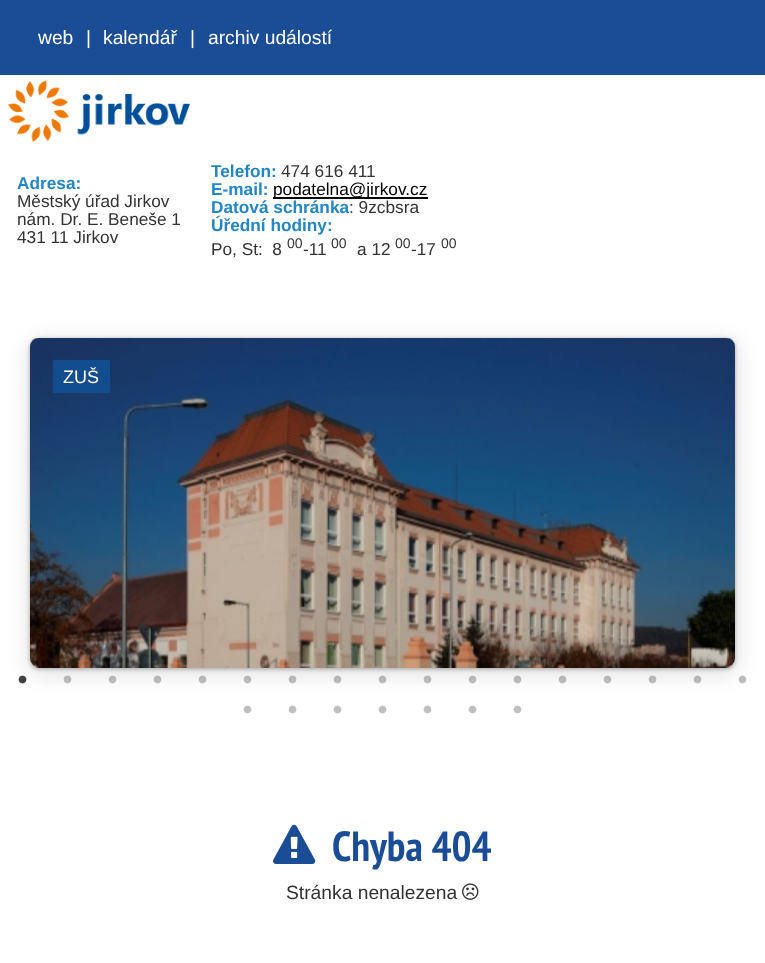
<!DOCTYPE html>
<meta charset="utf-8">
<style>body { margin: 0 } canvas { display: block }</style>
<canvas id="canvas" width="765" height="963"></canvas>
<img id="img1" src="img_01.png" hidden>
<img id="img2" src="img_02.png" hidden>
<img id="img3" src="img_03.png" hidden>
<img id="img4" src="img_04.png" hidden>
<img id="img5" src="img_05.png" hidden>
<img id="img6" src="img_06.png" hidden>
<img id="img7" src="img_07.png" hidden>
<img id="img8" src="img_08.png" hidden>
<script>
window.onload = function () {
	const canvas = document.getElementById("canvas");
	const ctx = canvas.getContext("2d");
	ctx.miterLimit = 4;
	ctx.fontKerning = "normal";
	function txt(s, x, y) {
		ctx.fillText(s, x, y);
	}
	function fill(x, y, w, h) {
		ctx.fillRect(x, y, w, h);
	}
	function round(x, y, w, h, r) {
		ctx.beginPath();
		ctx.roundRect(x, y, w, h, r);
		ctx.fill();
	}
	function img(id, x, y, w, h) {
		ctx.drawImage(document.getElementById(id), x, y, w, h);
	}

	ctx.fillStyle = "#1B4D96";
	fill(0, 0, 765, 963);
	ctx.fillStyle = "#FFFFFF";
	fill(0, 75, 765, 888);
	img("img1", 8, 80, 182, 62);
	ctx.fillStyle = "#000000";
	fill(273, 197, 155, 2);
	ctx.fillStyle = "rgba(0, 0, 0, 0.12)";
	ctx.filter = "blur(10.5px)";
	ctx.beginPath();
	ctx.roundRect(29, 341, 708, 333, 11);
	ctx.fill();
	ctx.filter = "none";
	ctx.fillStyle = "rgba(0, 0, 0, 0.3)";
	ctx.filter = "blur(2px)";
	ctx.beginPath();
	ctx.roundRect(30, 339, 705, 330, 9);
	ctx.fill();
	ctx.filter = "none";
	ctx.fillStyle = "#FFFFFF";
	round(30, 338, 705, 330, 9);
	img("img2", 30, 338, 705, 330);
	ctx.fillStyle = "#124D8E";
	fill(53, 360, 57, 33);
	img("img3", 18, 675, 9, 9);
	img("img4", 63, 675, 9, 9);
	img("img4", 108, 675, 9, 9);
	img("img4", 153, 675, 9, 9);
	img("img4", 198, 675, 9, 9);
	img("img4", 243, 675, 9, 9);
	img("img4", 288, 675, 9, 9);
	img("img4", 333, 675, 9, 9);
	img("img4", 378, 675, 9, 9);
	img("img4", 423, 675, 9, 9);
	img("img4", 468, 675, 9, 9);
	img("img4", 513, 675, 9, 9);
	img("img4", 558, 675, 9, 9);
	img("img4", 603, 675, 9, 9);
	img("img4", 648, 675, 9, 9);
	img("img4", 693, 675, 9, 9);
	img("img5", 738, 675, 9, 9);
	img("img6", 243, 705, 9, 9);
	img("img6", 288, 705, 9, 9);
	img("img6", 333, 705, 9, 9);
	img("img6", 378, 705, 9, 9);
	img("img6", 423, 705, 9, 9);
	img("img6", 468, 705, 9, 9);
	img("img6", 513, 705, 9, 9);
	img("img7", 273, 824, 43, 40);
	img("img8", 462, 883, 17, 17);
	ctx.font = "19.25px Liberation Sans";
	ctx.fillStyle = "#FFFFFF";
	txt("web", 38, 44);
	txt("|", 86, 44);
	txt("kalendář", 103, 44);
	txt("|", 190, 44);
	txt("archiv událostí", 208, 44);
	ctx.font = "bold 17.25px Liberation Sans";
	ctx.fillStyle = "#2486C4";
	txt("Adresa:", 17, 189);
	ctx.font = "17.25px Liberation Sans";
	ctx.fillStyle = "#333333";
	txt("Městský úřad Jirkov", 17, 207);
	txt("nám. Dr. E. Beneše 1", 17, 225);
	txt("431 11 Jirkov", 17, 243);
	ctx.font = "bold 17.25px Liberation Sans";
	ctx.fillStyle = "#2486C4";
	txt("Telefon:", 211, 177);
	ctx.font = "17.25px Liberation Sans";
	ctx.fillStyle = "#333333";
	txt("474 616 411", 281, 177);
	ctx.font = "bold 17.25px Liberation Sans";
	ctx.fillStyle = "#2486C4";
	txt("E-mail:", 211, 195);
	ctx.font = "17.25px Liberation Sans";
	ctx.fillStyle = "#000000";
	txt("podatelna@jirkov.cz", 273, 195);
	ctx.font = "bold 17.25px Liberation Sans";
	ctx.fillStyle = "#2486C4";
	txt("Datová schránka", 211, 213);
	ctx.font = "17.25px Liberation Sans";
	ctx.fillStyle = "#333333";
	txt(": 9zcbsra", 349, 213);
	ctx.font = "bold 17.25px Liberation Sans";
	ctx.fillStyle = "#2486C4";
	txt("Úřední hodiny:", 211, 231);
	ctx.font = "17.25px Liberation Sans";
	ctx.fillStyle = "#333333";
	txt("Po, St:  8", 211, 255);
	ctx.font = "14px Liberation Sans";
	txt("00", 287, 248);
	ctx.font = "17.25px Liberation Sans";
	txt("-11", 303, 255);
	ctx.font = "14px Liberation Sans";
	txt("00", 331, 248);
	ctx.font = "17.25px Liberation Sans";
	txt("a 12", 357, 255);
	ctx.font = "14px Liberation Sans";
	txt("00", 395, 248);
	ctx.font = "17.25px Liberation Sans";
	txt("-17", 411, 255);
	ctx.font = "14px Liberation Sans";
	txt("00", 441, 248);
	ctx.font = "18px Liberation Sans";
	ctx.fillStyle = "#FFFFFF";
	txt("ZUŠ", 63, 383);
	ctx.font = "bold 42px PT Sans Narrow";
	ctx.fillStyle = "#1B4D96";
	txt("Chyba 404", 332, 861);
	ctx.font = "19.25px Liberation Sans";
	ctx.fillStyle = "#333333";
	txt("Stránka nenalezena", 286, 899);
};
</script>
